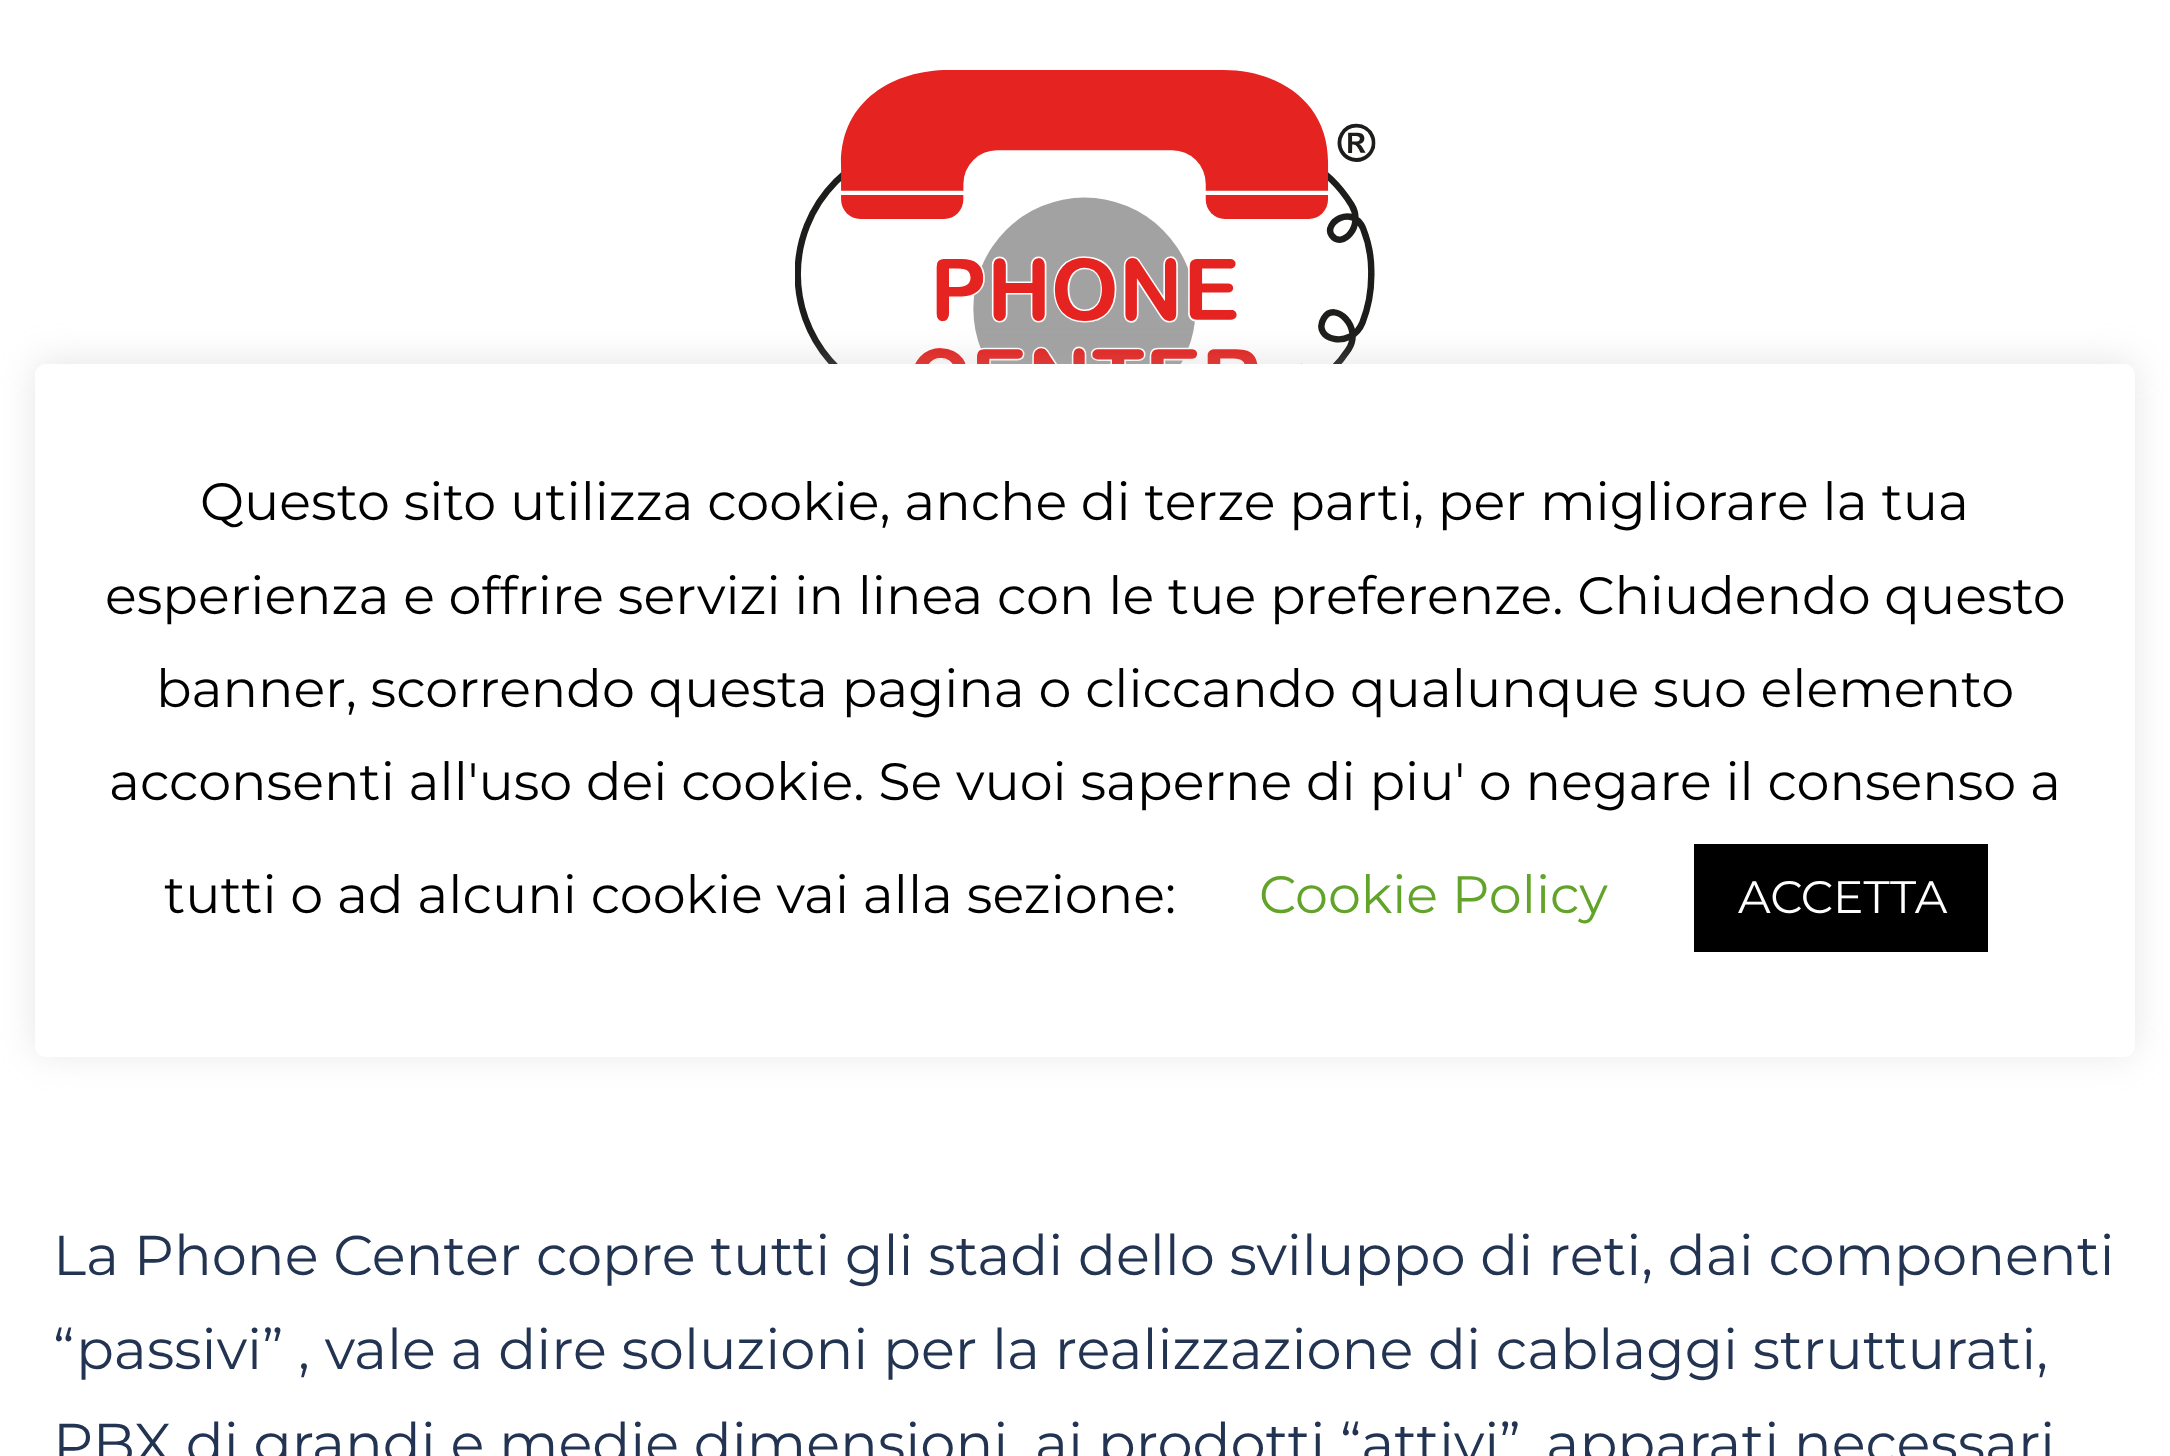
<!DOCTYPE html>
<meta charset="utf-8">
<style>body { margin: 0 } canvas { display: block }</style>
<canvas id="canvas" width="2170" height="1456"></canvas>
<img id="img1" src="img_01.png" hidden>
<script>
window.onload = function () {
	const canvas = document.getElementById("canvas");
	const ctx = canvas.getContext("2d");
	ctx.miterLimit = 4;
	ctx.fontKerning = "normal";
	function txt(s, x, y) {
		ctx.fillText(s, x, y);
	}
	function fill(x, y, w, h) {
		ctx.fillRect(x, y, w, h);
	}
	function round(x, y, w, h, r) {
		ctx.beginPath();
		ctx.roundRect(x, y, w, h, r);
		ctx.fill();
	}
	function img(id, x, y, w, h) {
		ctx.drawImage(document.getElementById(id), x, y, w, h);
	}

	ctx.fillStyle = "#FFFFFF";
	fill(0, 0, 2170, 1456);
	img("img1", 795, 70, 581, 294);
	ctx.fillStyle = "rgba(172, 171, 171, 0.3)";
	ctx.filter = "blur(17.5px)";
	ctx.beginPath();
	ctx.roundRect(35, 361, 2100, 693, 11);
	ctx.fill();
	ctx.filter = "none";
	ctx.fillStyle = "#FFFFFF";
	round(35, 364, 2100, 693, 11);
	ctx.fillStyle = "#000000";
	fill(1694, 844, 294, 108);
	ctx.font = "100 52.5px Montserrat";
	txt("Questo sito utilizza cookie, anche di terze parti, per migliorare la tua", 200, 520);
	txt("esperienza e offrire servizi in linea con le tue preferenze. Chiudendo questo", 105, 614);
	txt("banner, scorrendo questa pagina o cliccando qualunque suo elemento", 156, 707);
	txt("acconsenti all'uso dei cookie. Se vuoi saperne di piu' o negare il consenso a", 109, 800);
	txt("tutti o ad alcuni cookie vai alla sezione:", 164, 913);
	ctx.fillStyle = "#62A329";
	txt("Cookie Policy", 1259, 913);
	ctx.font = "100 45.5px Montserrat";
	ctx.fillStyle = "#FFFFFF";
	txt("ACCETTA", 1738, 913);
	ctx.font = "100 56px Montserrat";
	ctx.fillStyle = "#233452";
	txt("La Phone Center copre tutti gli stadi dello sviluppo di reti, dai componenti", 53, 1275);
	txt("“passivi” , vale a dire soluzioni per la realizzazione di cablaggi strutturati,", 53, 1369);
	txt("PBX di grandi e medie dimensioni, ai prodotti “attivi”, apparati necessari", 53, 1463);
};
</script>
